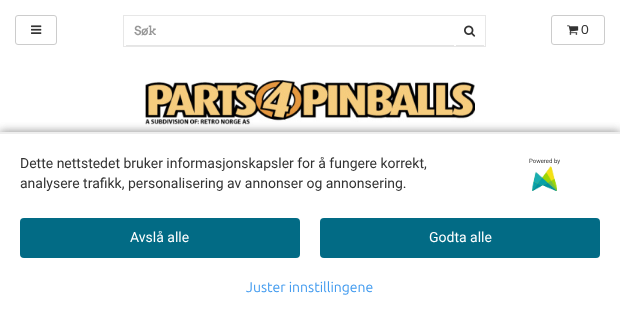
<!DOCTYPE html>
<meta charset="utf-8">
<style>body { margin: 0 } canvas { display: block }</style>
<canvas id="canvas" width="620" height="318"></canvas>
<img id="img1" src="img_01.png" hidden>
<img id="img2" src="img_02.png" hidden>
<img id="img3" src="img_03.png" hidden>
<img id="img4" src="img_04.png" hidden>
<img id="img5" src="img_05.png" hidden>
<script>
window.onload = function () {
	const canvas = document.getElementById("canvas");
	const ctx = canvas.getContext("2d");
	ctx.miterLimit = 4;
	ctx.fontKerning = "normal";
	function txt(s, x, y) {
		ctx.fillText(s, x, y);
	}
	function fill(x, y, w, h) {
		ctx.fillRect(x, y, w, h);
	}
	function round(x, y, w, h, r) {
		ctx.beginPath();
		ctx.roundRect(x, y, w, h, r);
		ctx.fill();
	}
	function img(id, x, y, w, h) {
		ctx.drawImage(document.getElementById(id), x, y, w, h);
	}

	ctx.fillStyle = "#FFFFFF";
	fill(0, 0, 620, 318);
	ctx.beginPath();
	ctx.roundRect(15.5, 15.5, 41, 29, 2.5);
	ctx.strokeStyle = "#CCCCCC";
	ctx.stroke();
	img("img1", 31, 25, 11, 9);
	ctx.strokeStyle = "#E7E7E7";
	ctx.strokeRect(123.5, 15.5, 362, 31);
	ctx.fillStyle = "#E5E5E5";
	fill(126, 45, 328, 1);
	fill(456, 45, 28, 1);
	img("img2", 464, 25, 12, 12);
	ctx.beginPath();
	ctx.roundRect(551.5, 15.5, 53, 29, 2.5);
	ctx.strokeStyle = "#CCCCCC";
	ctx.stroke();
	img("img3", 567, 25, 12, 10);
	img("img4", 145, 80, 330, 45);
	ctx.fillStyle = "rgba(0, 0, 0, 0.25)";
	ctx.filter = "blur(5px)";
	ctx.beginPath();
	ctx.rect(0, 132, 620, 186);
	ctx.fill();
	ctx.filter = "none";
	ctx.filter = "blur(5px)";
	ctx.beginPath();
	ctx.rect(0, 132, 620, 186);
	ctx.fill();
	ctx.filter = "none";
	ctx.fillStyle = "#FFFFFF";
	fill(0, 134, 620, 184);
	ctx.fillStyle = "#EEEEEE";
	fill(0, 132, 620, 2);
	img("img5", 532, 166, 25, 25);
	ctx.fillStyle = "#026B85";
	round(20, 218, 280, 40, 4);
	round(320, 218, 280, 40, 4);
	ctx.font = "bold 12px Arvo";
	ctx.fillStyle = "#999999";
	txt("Søk", 134, 35);
	ctx.font = "12px Arvo";
	ctx.fillStyle = "#333333";
	txt("0", 581, 34);
	ctx.font = "14px Roboto";
	txt("Dette nettstedet bruker informasjonskapsler for å fungere korrekt,", 20, 168);
	txt("analysere trafikk, personalisering av annonser og annonsering.", 20, 188);
	ctx.font = "6px Roboto";
	txt("Powered by", 529, 163);
	ctx.font = "14px Roboto";
	ctx.fillStyle = "#FFFFFF";
	txt("Avslå alle", 130, 242);
	txt("Godta alle", 429, 242);
	ctx.font = "14px Ubuntu";
	ctx.fillStyle = "#409AEF";
	txt("Juster innstillingene", 246, 292);
};
</script>
